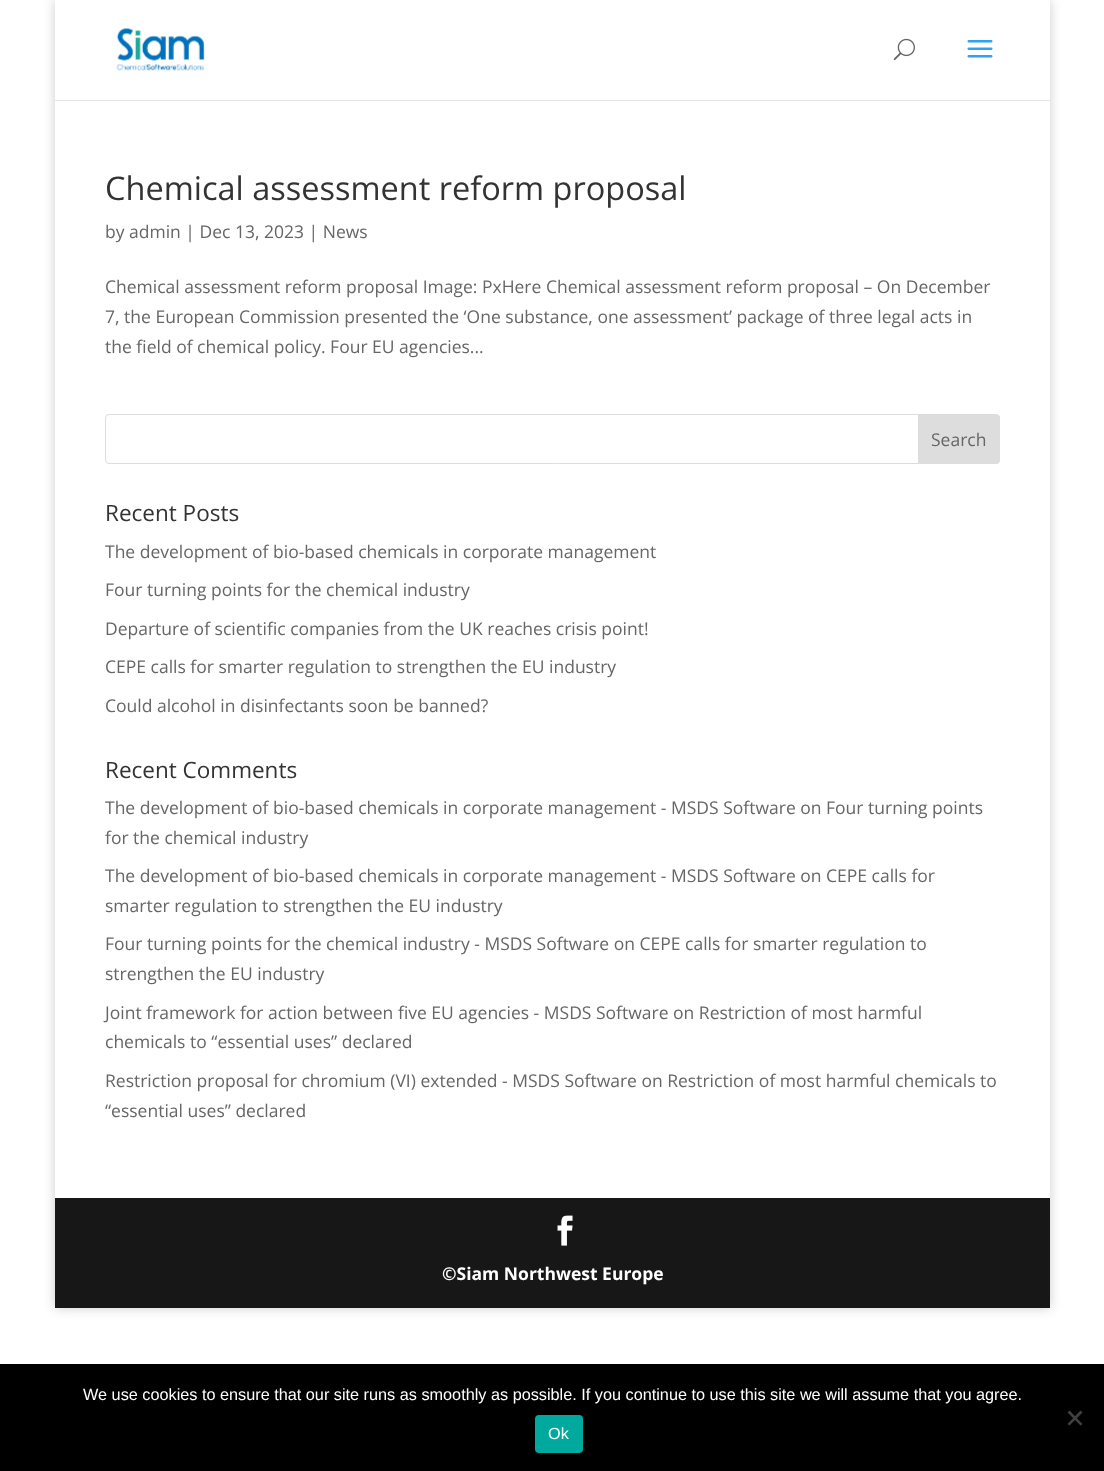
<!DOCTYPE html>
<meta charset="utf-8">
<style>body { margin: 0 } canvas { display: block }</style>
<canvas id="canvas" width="1104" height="1471"></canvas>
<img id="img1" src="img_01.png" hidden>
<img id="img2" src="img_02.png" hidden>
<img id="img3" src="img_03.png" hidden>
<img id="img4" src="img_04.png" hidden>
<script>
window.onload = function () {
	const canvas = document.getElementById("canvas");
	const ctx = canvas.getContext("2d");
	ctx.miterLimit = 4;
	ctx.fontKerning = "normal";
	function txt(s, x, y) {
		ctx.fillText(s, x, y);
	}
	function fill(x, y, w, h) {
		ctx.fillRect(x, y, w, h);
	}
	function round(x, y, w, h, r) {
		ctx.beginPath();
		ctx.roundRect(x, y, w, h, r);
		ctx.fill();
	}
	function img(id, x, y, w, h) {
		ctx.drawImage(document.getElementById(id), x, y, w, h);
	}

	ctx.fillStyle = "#FFFFFF";
	fill(0, 0, 1104, 1471);
	ctx.save();
	ctx.beginPath();
	ctx.moveTo(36, 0);
	ctx.lineTo(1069, 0);
	ctx.lineTo(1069, 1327);
	ctx.lineTo(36, 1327);
	ctx.closePath();
	ctx.moveTo(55, 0);
	ctx.lineTo(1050, 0);
	ctx.lineTo(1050, 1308);
	ctx.lineTo(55, 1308);
	ctx.closePath();
	ctx.clip("evenodd");
	ctx.fillStyle = "rgba(0, 0, 0, 0.2)";
	ctx.filter = "blur(6px)";
	ctx.beginPath();
	ctx.rect(55, 0, 995, 1308);
	ctx.fill();
	ctx.filter = "none";
	ctx.restore();
	ctx.fillStyle = "#E6E6E6";
	fill(55, 100, 995, 1);
	img("img1", 116, 28, 89, 43);
	img("img2", 893, 38, 22, 23);
	img("img3", 967, 40, 26, 18);
	ctx.beginPath();
	ctx.roundRect(105.5, 414.5, 894, 49, 3.5);
	ctx.strokeStyle = "#DDDDDD";
	ctx.stroke();
	ctx.fillStyle = "#DDDDDD";
	ctx.beginPath();
	ctx.roundRect(918.5, 414.5, 81, 49, [0, 3.5, 3.5, 0]);
	ctx.fill();
	ctx.stroke();
	ctx.fillStyle = "#171717";
	fill(55, 1198, 995, 110);
	img("img4", 557, 1215, 16, 31);
	ctx.fillStyle = "#000000";
	fill(0, 1364, 1104, 107);
	ctx.fillStyle = "#404040";
	ctx.beginPath();
	ctx.moveTo(1080.5, 1410.5);
	ctx.lineTo(1082.5, 1412.5);
	ctx.lineTo(1069.5, 1425.5);
	ctx.lineTo(1067.5, 1424);
	ctx.closePath();
	ctx.fill();
	ctx.beginPath();
	ctx.moveTo(1067.5, 1412.5);
	ctx.lineTo(1069.5, 1410.5);
	ctx.lineTo(1082.5, 1424);
	ctx.lineTo(1080.5, 1425.5);
	ctx.closePath();
	ctx.fill();
	ctx.fillStyle = "#00A99D";
	round(535, 1415, 48, 38, 4);
	ctx.font = "32.5px Open Sans";
	ctx.fillStyle = "#333333";
	txt("Chemical assessment reform proposal", 105, 200);
	ctx.font = "17.5px Open Sans";
	ctx.fillStyle = "#666666";
	txt("by admin | Dec 13, 2023 | News", 105, 238);
	txt("Chemical assessment reform proposal Image: PxHere Chemical assessment reform proposal – On December", 105, 293);
	txt("7, the European Commission presented the ‘One substance, one assessment’ package of three legal acts in", 105, 323);
	txt("the field of chemical policy. Four EU agencies...", 105, 353);
	txt("Search", 931, 446);
	ctx.font = "22.5px Open Sans";
	ctx.fillStyle = "#333333";
	txt("Recent Posts", 105, 521);
	ctx.font = "17.5px Open Sans";
	ctx.fillStyle = "#666666";
	txt("The development of bio-based chemicals in corporate management", 105, 558);
	txt("Four turning points for the chemical industry", 105, 596);
	txt("Departure of scientific companies from the UK reaches crisis point!", 105, 635);
	txt("CEPE calls for smarter regulation to strengthen the EU industry", 105, 673);
	txt("Could alcohol in disinfectants soon be banned?", 105, 712);
	ctx.font = "22.5px Open Sans";
	ctx.fillStyle = "#333333";
	txt("Recent Comments", 105, 778);
	ctx.font = "17.5px Open Sans";
	ctx.fillStyle = "#666666";
	txt("The development of bio-based chemicals in corporate management - MSDS Software on Four turning points", 105, 814);
	txt("for the chemical industry", 105, 844);
	txt("The development of bio-based chemicals in corporate management - MSDS Software on CEPE calls for", 105, 882);
	txt("smarter regulation to strengthen the EU industry", 105, 912);
	txt("Four turning points for the chemical industry - MSDS Software on CEPE calls for smarter regulation to", 105, 950);
	txt("strengthen the EU industry", 105, 980);
	txt("Joint framework for action between five EU agencies - MSDS Software on Restriction of most harmful", 105, 1019);
	txt("chemicals to “essential uses” declared", 105, 1048);
	txt("Restriction proposal for chromium (VI) extended - MSDS Software on Restriction of most harmful chemicals to", 105, 1087);
	txt("“essential uses” declared", 105, 1117);
	ctx.font = "bold 17.5px Open Sans";
	ctx.fillStyle = "#FFFFFF";
	txt("©Siam Northwest Europe", 442, 1280);
	ctx.font = "16.25px Liberation Sans";
	txt("We use cookies to ensure that our site runs as smoothly as possible. If you continue to use this site we will assume that you agree.", 83, 1400);
	txt("Ok", 548, 1439);
};
</script>
